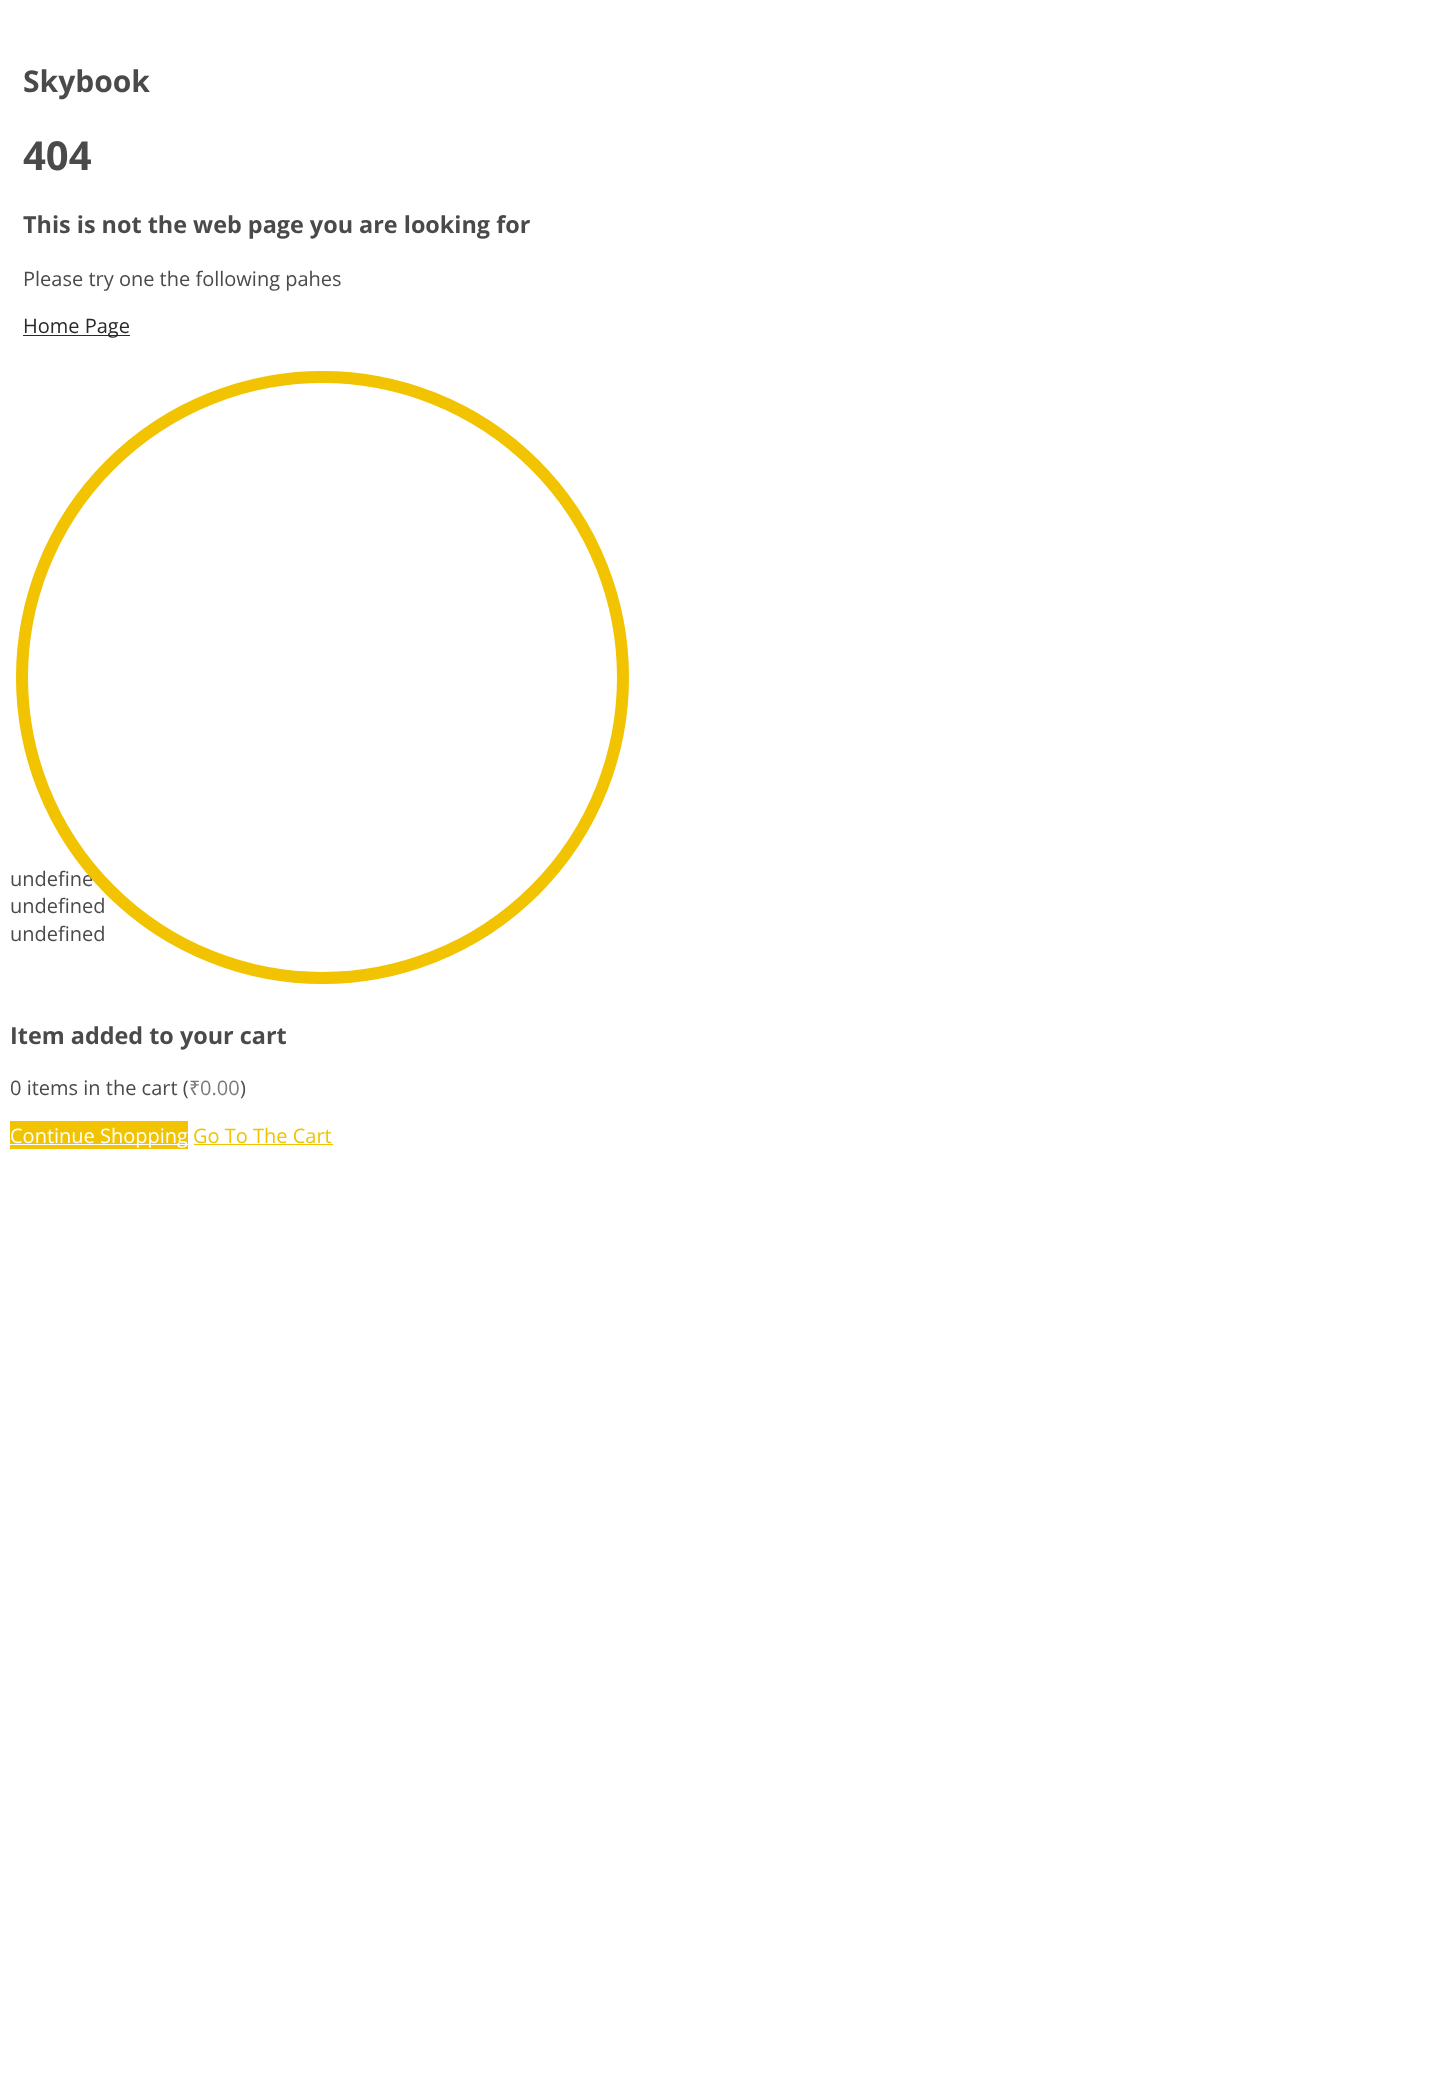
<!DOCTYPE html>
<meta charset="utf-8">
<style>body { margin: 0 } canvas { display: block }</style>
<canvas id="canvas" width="1432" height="2097"></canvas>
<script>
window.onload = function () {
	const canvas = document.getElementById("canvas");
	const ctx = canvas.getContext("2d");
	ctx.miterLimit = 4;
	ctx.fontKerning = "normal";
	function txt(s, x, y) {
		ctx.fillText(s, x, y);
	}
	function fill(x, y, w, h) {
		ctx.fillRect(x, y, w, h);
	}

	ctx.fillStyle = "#FFFFFF";
	fill(0, 0, 1432, 2097);
	ctx.fillStyle = "#292929";
	fill(23, 335, 107, 1);
	ctx.fillStyle = "#F1C300";
	fill(10, 1121, 178, 28);
	ctx.fillStyle = "#FFFFFF";
	fill(10, 1144, 178, 1);
	ctx.fillStyle = "#F1C300";
	fill(194, 1144, 139, 1);
	ctx.font = "bold 30px Open Sans";
	ctx.fillStyle = "#4A4A4A";
	txt("Skybook", 23, 92);
	ctx.font = "bold 40px Open Sans";
	txt("404", 23, 170);
	ctx.font = "bold 23.4px Open Sans";
	txt("This is not the web page you are looking for", 23, 233);
	ctx.font = "20px Open Sans";
	txt("Please try one the following pahes", 23, 286);
	ctx.fillStyle = "#292929";
	txt("Home Page", 23, 333);
	ctx.fillStyle = "#4A4A4A";
	txt("undefine", 10, 886);
	txt("undefined", 10, 913);
	txt("undefined", 10, 941);
	ctx.beginPath();
	ctx.arc(322.5, 677.5, 300.5, 0, Math.PI * 2);
	ctx.strokeStyle = "#F1C300";
	ctx.lineWidth = 12;
	ctx.stroke();
	ctx.font = "bold 23.4px Open Sans";
	txt("Item added to your cart", 10, 1044);
	ctx.font = "20px Open Sans";
	txt("0 items in the cart (", 10, 1095);
	ctx.font = "20px Noto Sans";
	ctx.fillStyle = "#7A7A7A";
	txt("₹", 189, 1095);
	ctx.font = "20px Open Sans";
	txt("0.00", 200, 1095);
	ctx.fillStyle = "#4A4A4A";
	txt(")", 240, 1095);
	ctx.fillStyle = "#FFFFFF";
	txt("Continue Shopping", 10, 1143);
	ctx.fillStyle = "#F1C300";
	txt("Go To The Cart", 193, 1143);
};
</script>
